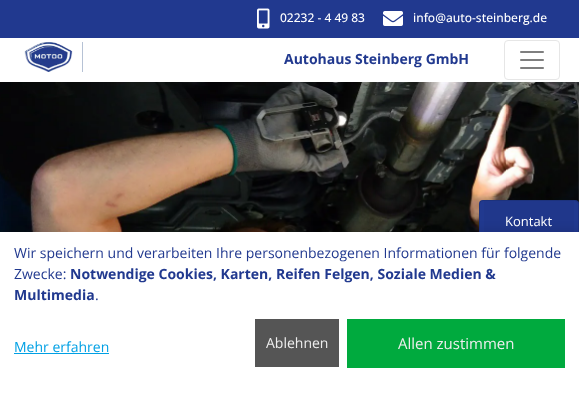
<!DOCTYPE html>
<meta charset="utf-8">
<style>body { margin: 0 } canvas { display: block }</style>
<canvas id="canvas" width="579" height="398"></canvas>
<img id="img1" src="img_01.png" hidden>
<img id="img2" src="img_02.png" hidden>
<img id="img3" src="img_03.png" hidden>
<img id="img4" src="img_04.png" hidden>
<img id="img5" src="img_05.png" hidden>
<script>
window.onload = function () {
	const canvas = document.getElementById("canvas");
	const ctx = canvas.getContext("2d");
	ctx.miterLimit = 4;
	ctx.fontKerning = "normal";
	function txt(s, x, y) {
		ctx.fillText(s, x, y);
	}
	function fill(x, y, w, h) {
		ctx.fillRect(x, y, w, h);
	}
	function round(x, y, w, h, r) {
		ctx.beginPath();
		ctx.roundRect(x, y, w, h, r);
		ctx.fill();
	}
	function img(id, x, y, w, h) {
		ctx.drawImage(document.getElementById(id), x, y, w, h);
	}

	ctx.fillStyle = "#FFFFFF";
	fill(0, 0, 579, 398);
	ctx.fillStyle = "#21398F";
	fill(0, 0, 579, 38);
	img("img1", 257, 8, 13, 21);
	img("img2", 383, 11, 20, 15);
	img("img3", 24, 42, 49, 30);
	ctx.fillStyle = "#B6C2D5";
	fill(82, 42, 1, 30);
	ctx.beginPath();
	ctx.roundRect(504.5, 40.5, 55, 39, 3.5);
	ctx.strokeStyle = "#E6E6E6";
	ctx.stroke();
	img("img4", 520, 51, 24, 18);
	img("img5", 0, 82, 579, 150);
	ctx.fillStyle = "#21398F";
	round(479, 200, 100, 106, 4);
	ctx.beginPath();
	ctx.roundRect(479.5, 200.5, 99, 105, 3.5);
	ctx.strokeStyle = "rgba(0, 0, 0, 0.12)";
	ctx.stroke();
	ctx.fillStyle = "#20378B";
	fill(484, 201, 90, 31);
	ctx.fillStyle = "rgba(0, 0, 0, 0.1)";
	ctx.filter = "blur(5px)";
	ctx.beginPath();
	ctx.rect(-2, 230, 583, 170);
	ctx.fill();
	ctx.filter = "none";
	ctx.fillStyle = "#FFFFFF";
	fill(0, 232, 579, 166);
	ctx.fillStyle = "#00A0E4";
	fill(14, 353, 95, 1);
	ctx.fillStyle = "#555555";
	fill(255, 319, 84, 48);
	ctx.fillStyle = "#00AA3E";
	fill(347, 319, 218, 49);
	ctx.font = "500 12px Open Sans";
	ctx.fillStyle = "#FFFFFF";
	txt("02232 - 4 49 83", 280, 22);
	txt("info@auto-steinberg.de", 413, 22);
	ctx.font = "bold 14px Open Sans";
	ctx.fillStyle = "#21398F";
	txt("Autohaus Steinberg GmbH", 284, 64);
	ctx.font = "13px Open Sans";
	ctx.fillStyle = "#FFFFFF";
	txt("Kontakt", 505, 226);
	ctx.font = "14px Open Sans";
	ctx.fillStyle = "#21398F";
	txt("Wir speichern und verarbeiten Ihre personenbezogenen Informationen für folgende", 14, 258);
	txt("Zwecke:", 14, 279);
	ctx.font = "bold 14px Open Sans";
	txt("Notwendige Cookies, Karten, Reifen Felgen, Soziale Medien &", 70, 279);
	txt("Multimedia", 14, 300);
	ctx.font = "14px Open Sans";
	txt(".", 95, 300);
	ctx.fillStyle = "#00A0E4";
	txt("Mehr erfahren", 14, 352);
	ctx.fillStyle = "#EEEEEE";
	txt("Ablehnen", 266, 348);
	ctx.font = "15px Open Sans";
	txt("Allen zustimmen", 398, 349);
};
</script>
